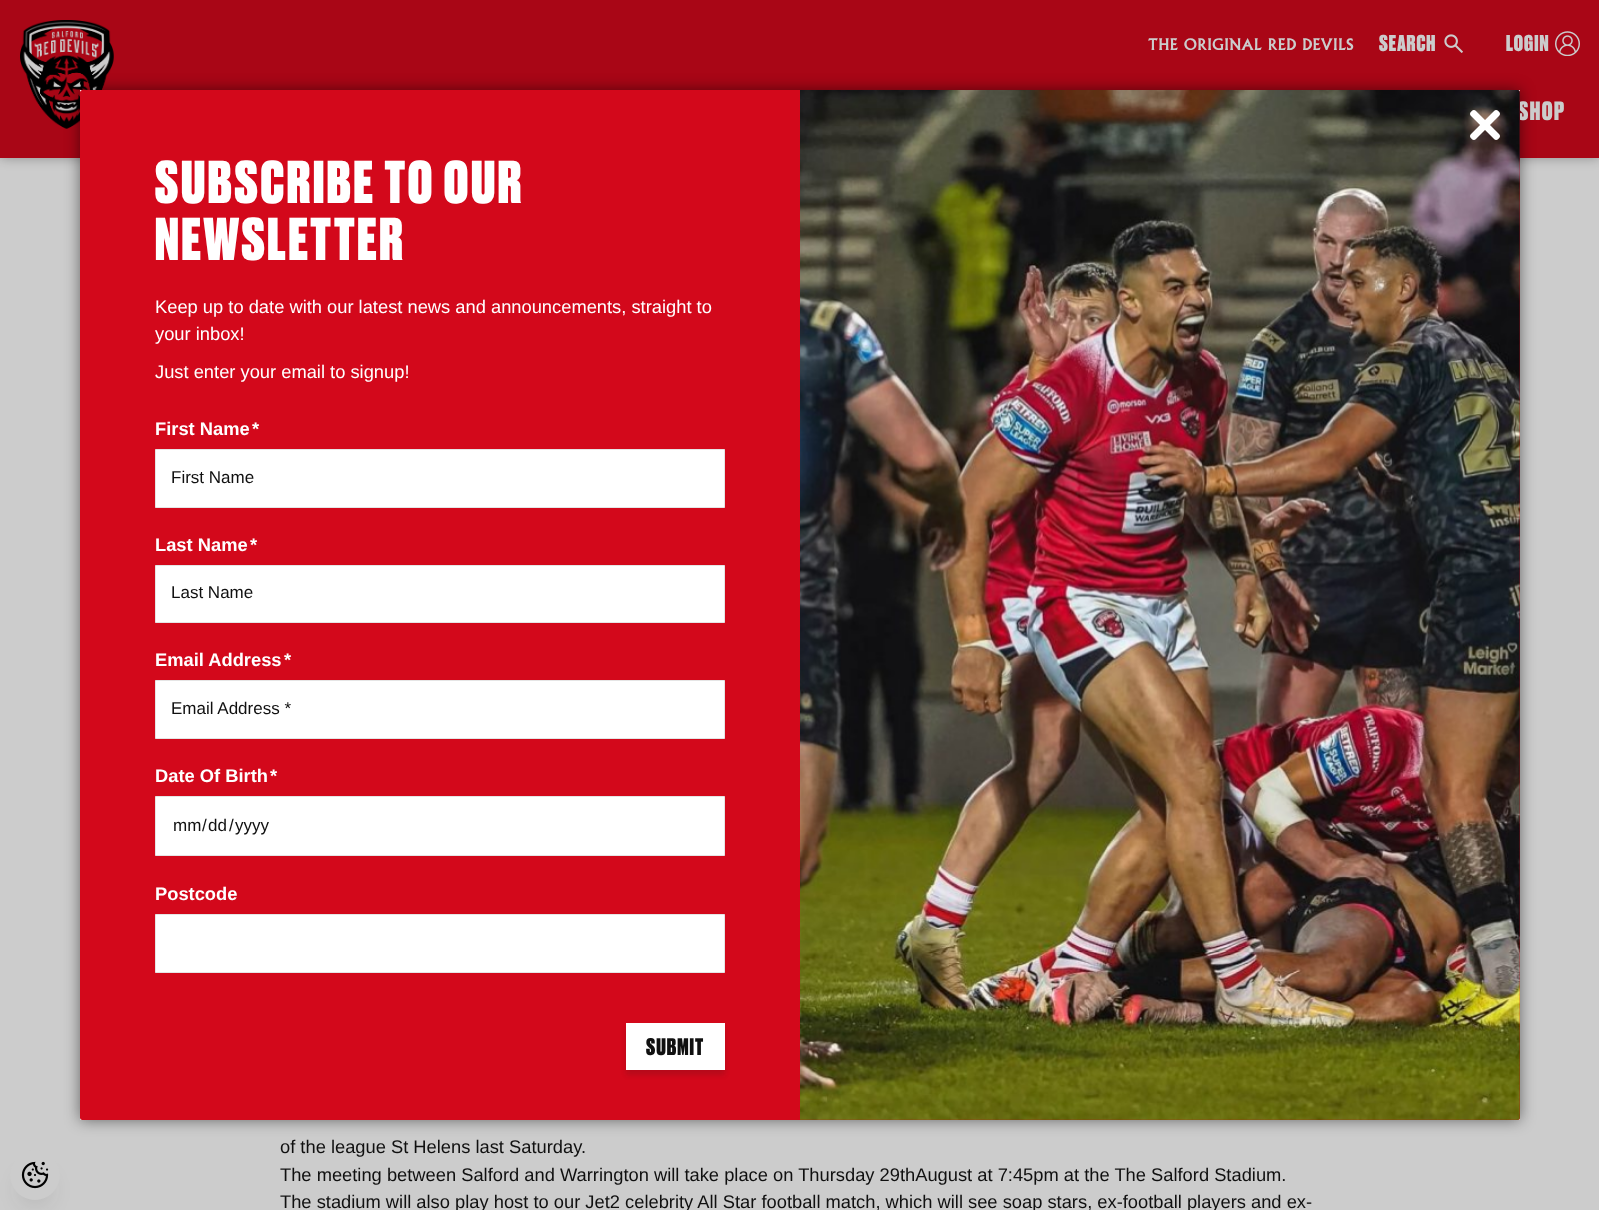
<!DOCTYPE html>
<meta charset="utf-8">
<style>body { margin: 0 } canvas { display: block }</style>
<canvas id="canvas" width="1599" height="1210"></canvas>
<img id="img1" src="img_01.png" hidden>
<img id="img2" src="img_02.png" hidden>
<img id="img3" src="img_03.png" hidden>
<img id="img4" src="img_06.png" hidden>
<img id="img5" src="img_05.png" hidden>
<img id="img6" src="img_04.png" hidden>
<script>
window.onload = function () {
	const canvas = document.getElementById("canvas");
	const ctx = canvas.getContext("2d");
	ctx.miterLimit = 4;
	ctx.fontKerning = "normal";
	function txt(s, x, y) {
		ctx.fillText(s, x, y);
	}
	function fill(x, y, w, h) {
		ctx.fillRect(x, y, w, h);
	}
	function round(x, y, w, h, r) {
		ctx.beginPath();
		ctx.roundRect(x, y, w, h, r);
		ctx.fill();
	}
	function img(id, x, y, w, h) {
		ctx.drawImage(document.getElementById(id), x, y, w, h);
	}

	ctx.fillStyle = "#CCCCCC";
	fill(0, 0, 1599, 1210);
	ctx.fillStyle = "rgba(0, 0, 0, 0.3)";
	ctx.filter = "blur(6px)";
	ctx.beginPath();
	ctx.rect(0, 0, 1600, 158);
	ctx.fill();
	ctx.filter = "none";
	ctx.fillStyle = "#A90616";
	fill(0, 0, 1599, 158);
	img("img1", 20, 20, 94, 109);
	img("img2", 1444, 34, 19, 19);
	img("img3", 1555, 31, 25, 25);
	ctx.fillStyle = "rgba(0, 0, 0, 0.5)";
	ctx.filter = "blur(7.5px)";
	ctx.beginPath();
	ctx.rect(80, 90, 1440, 1030);
	ctx.fill();
	ctx.filter = "none";
	ctx.fillStyle = "rgba(30, 30, 31, 0.08)";
	ctx.filter = "blur(9.5px)";
	ctx.beginPath();
	ctx.roundRect(16, 1171, 38, 38, 19);
	ctx.fill();
	ctx.filter = "none";
	ctx.fillStyle = "#CCCCCC";
	ctx.beginPath();
	ctx.arc(35, 1175, 25, 0, Math.PI * 2);
	ctx.fill();
	img("img4", 21, 1161, 28, 28);
	ctx.letterSpacing = "0.75px";
	ctx.font = "bold 15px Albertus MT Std";
	txt("THE ORIGINAL RED DEVILS", 1148, 50);
	ctx.letterSpacing = "1px";
	ctx.font = "900 21.5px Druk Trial";
	txt("SEARCH", 1379, 51);
	txt("LOGIN", 1506, 51);
	ctx.letterSpacing = "1.5px";
	ctx.font = "900 25px Druk Trial";
	txt("SHOP", 1518, 120);
	ctx.fillStyle = "#FFFFFF";
	fill(80, 90, 1440, 1030);
	ctx.fillStyle = "#D3081B";
	round(80, 90, 1440, 1030, 2.5);
	ctx.letterSpacing = "2.8px";
	ctx.font = "900 56.75px Druk Trial";
	ctx.fillStyle = "#FFFFFF";
	txt("SUBSCRIBE TO OUR", 155, 203);
	txt("NEWSLETTER", 155, 260);
	ctx.letterSpacing = "0px";
	ctx.font = "18.32px Liberation Sans";
	txt("Keep up to date with our latest news and announcements, straight to", 155, 313);
	txt("your inbox!", 155, 340);
	txt("Just enter your email to signup!", 155, 378);
	ctx.font = "bold 18.32px Liberation Sans";
	txt("First Name", 155, 435);
	txt("*", 252, 435);
	ctx.beginPath();
	ctx.rect(155.5, 449.5, 569, 58);
	ctx.fill();
	ctx.strokeStyle = "#E5E5E5";
	ctx.stroke();
	ctx.font = "17px Liberation Sans";
	ctx.fillStyle = "#101010";
	txt("First Name", 171, 483);
	ctx.font = "bold 18.32px Liberation Sans";
	ctx.fillStyle = "#FFFFFF";
	txt("Last Name", 155, 551);
	txt("*", 250, 551);
	ctx.beginPath();
	ctx.rect(155.5, 565.5, 569, 57);
	ctx.fill();
	ctx.stroke();
	ctx.font = "17px Liberation Sans";
	ctx.fillStyle = "#101010";
	txt("Last Name", 171, 598);
	ctx.font = "bold 18.32px Liberation Sans";
	ctx.fillStyle = "#FFFFFF";
	txt("Email Address", 155, 666);
	txt("*", 284, 666);
	ctx.beginPath();
	ctx.rect(155.5, 680.5, 569, 58);
	ctx.fill();
	ctx.stroke();
	ctx.font = "17px Liberation Sans";
	ctx.fillStyle = "#101010";
	txt("Email Address *", 171, 714);
	ctx.font = "bold 18.32px Liberation Sans";
	ctx.fillStyle = "#FFFFFF";
	txt("Date Of Birth", 155, 782);
	txt("*", 270, 782);
	ctx.beginPath();
	ctx.rect(155.5, 796.5, 569, 59);
	ctx.fill();
	ctx.stroke();
	ctx.font = "17px Liberation Sans";
	ctx.fillStyle = "#101010";
	txt("mm", 173, 831);
	txt("/", 202, 831);
	txt("dd", 208, 831);
	txt("/", 229, 831);
	txt("yyyy", 235, 831);
	ctx.font = "bold 18.32px Liberation Sans";
	ctx.fillStyle = "#FFFFFF";
	txt("Postcode", 155, 900);
	ctx.beginPath();
	ctx.rect(155.5, 914.5, 569, 58);
	ctx.fill();
	ctx.stroke();
	ctx.fillStyle = "rgba(20, 20, 20, 0.15)";
	ctx.filter = "blur(2.5px)";
	ctx.beginPath();
	ctx.rect(626, 1028, 99, 47);
	ctx.fill();
	ctx.filter = "none";
	ctx.fillStyle = "#FFFFFF";
	fill(626, 1023, 99, 47);
	ctx.letterSpacing = "1px";
	ctx.font = "900 22.5px Druk Trial";
	ctx.fillStyle = "#101010";
	txt("SUBMIT", 646, 1055);
	img("img5", 800, 90, 720, 1030);
	img("img6", 1470, 110, 30, 30);
	ctx.letterSpacing = "0px";
	ctx.font = "18.32px Liberation Sans";
	txt("of the league St Helens last Saturday.", 280, 1153);
	txt("The meeting between Salford and Warrington will take place on Thursday 29thAugust at 7:45pm at the The Salford Stadium.", 280, 1181);
	txt("The stadium will also play host to our Jet2 celebrity All Star football match, which will see soap stars, ex-football players and ex-", 280, 1208);
};
</script>
